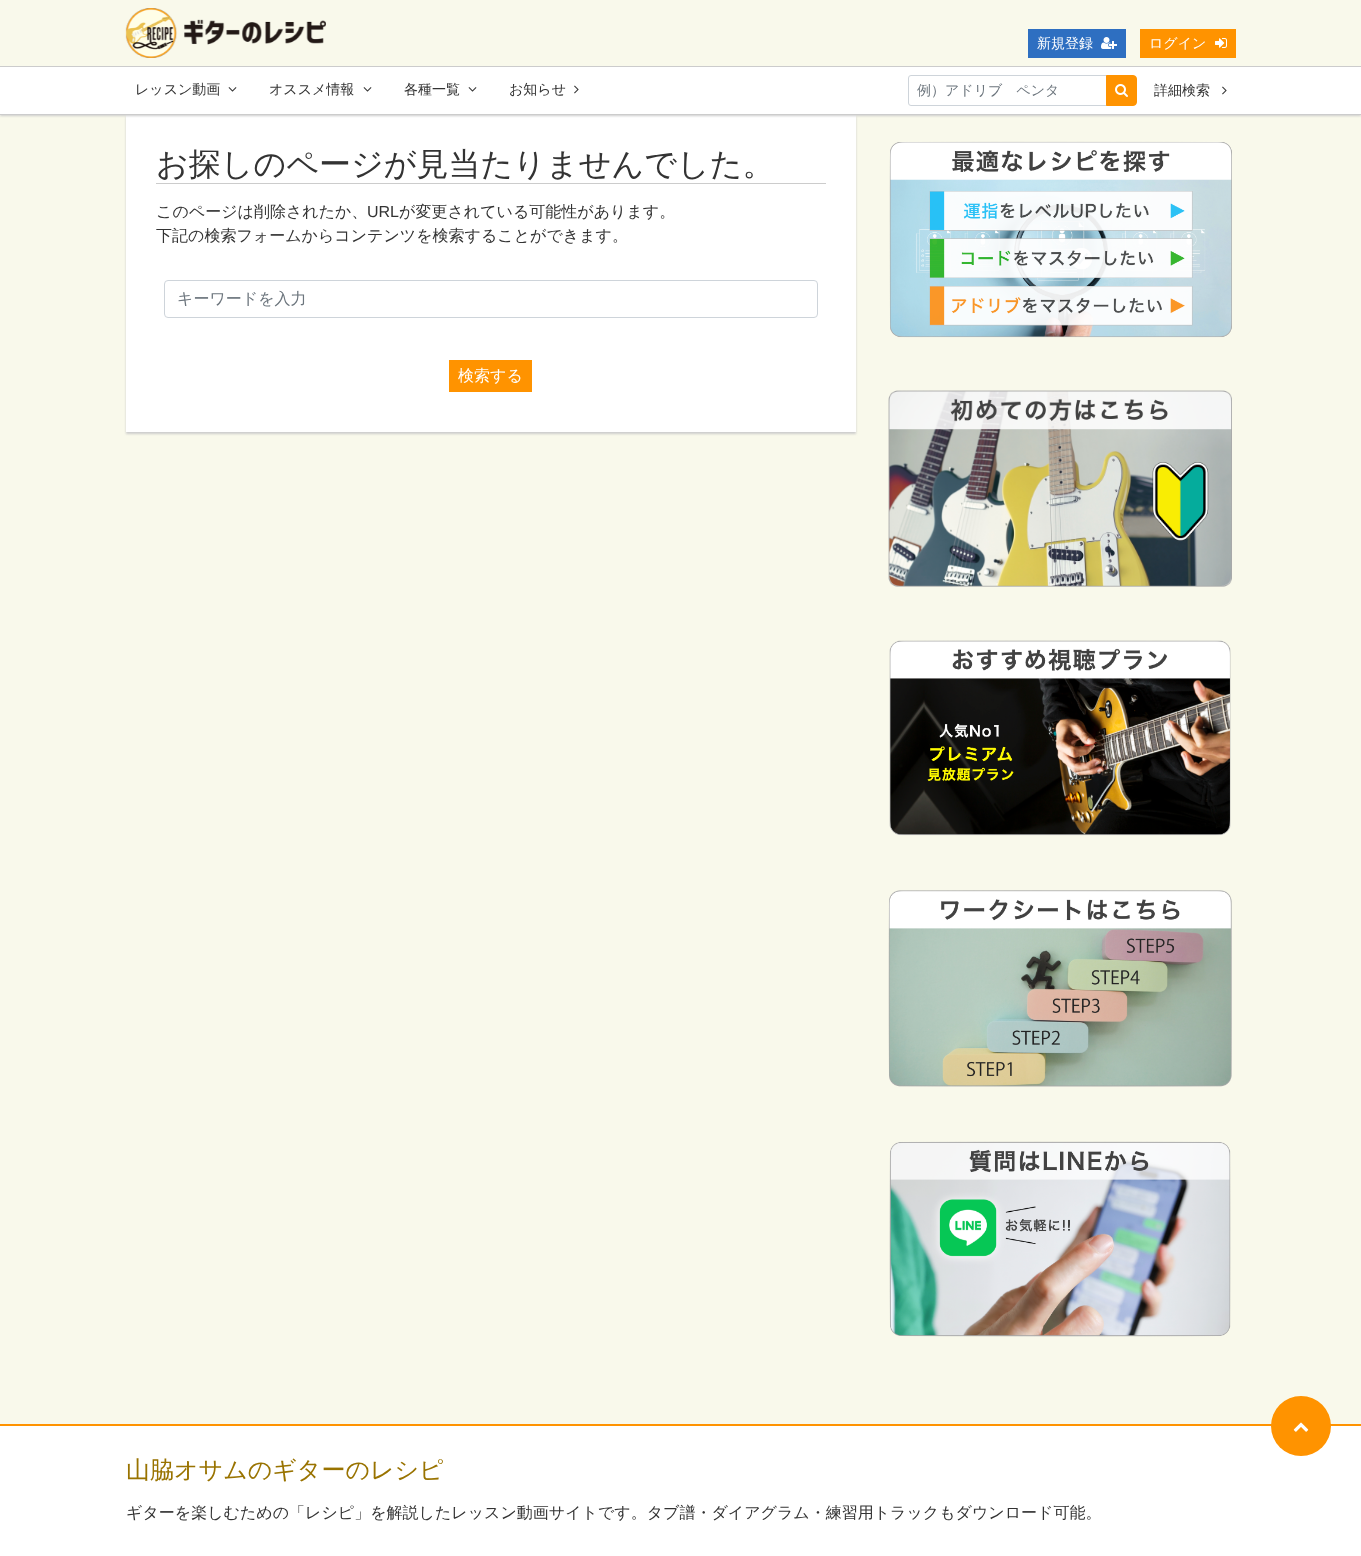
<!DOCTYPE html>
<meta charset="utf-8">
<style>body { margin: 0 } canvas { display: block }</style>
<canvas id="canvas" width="1361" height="1556"></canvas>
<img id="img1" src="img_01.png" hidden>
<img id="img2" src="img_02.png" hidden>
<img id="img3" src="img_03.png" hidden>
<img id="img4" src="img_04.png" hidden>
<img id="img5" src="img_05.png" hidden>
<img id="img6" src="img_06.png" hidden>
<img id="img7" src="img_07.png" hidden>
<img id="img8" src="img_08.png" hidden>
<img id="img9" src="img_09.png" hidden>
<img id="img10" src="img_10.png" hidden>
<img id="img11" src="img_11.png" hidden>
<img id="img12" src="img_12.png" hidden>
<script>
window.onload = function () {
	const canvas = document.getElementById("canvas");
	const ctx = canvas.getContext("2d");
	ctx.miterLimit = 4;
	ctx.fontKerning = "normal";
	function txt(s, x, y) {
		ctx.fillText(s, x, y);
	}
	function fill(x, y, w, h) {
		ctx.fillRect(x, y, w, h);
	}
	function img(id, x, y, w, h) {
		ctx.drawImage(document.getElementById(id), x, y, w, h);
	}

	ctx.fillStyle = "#F9F9EB";
	fill(0, 0, 1361, 1556);
	ctx.fillStyle = "#CCCCCC";
	ctx.filter = "blur(1px)";
	ctx.beginPath();
	ctx.rect(126, 117, 730, 317);
	ctx.fill();
	ctx.filter = "none";
	ctx.fillStyle = "#FFFFFF";
	fill(0, 67, 1361, 47);
	ctx.fillStyle = "#CCCCCC";
	fill(0, 114, 1361, 1);
	img("img1", 125, 8, 201, 50);
	ctx.fillStyle = "#2E6FC1";
	fill(1028, 29, 98, 29);
	img("img2", 1101, 37, 16, 12);
	ctx.fillStyle = "#FF9300";
	fill(1140, 29, 96, 29);
	img("img3", 1215, 38, 12, 10);
	ctx.fillStyle = "#FFFFFF";
	fill(126, 115, 730, 317);
	ctx.save();
	ctx.beginPath();
	ctx.rect(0, 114, 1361, 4);
	ctx.clip();
	ctx.fillStyle = "#CCCCCC";
	ctx.filter = "blur(1px)";
	ctx.beginPath();
	ctx.rect(0, 68, 1361, 48);
	ctx.fill();
	ctx.filter = "none";
	ctx.restore();
	ctx.fillStyle = "#CCCCCC";
	fill(0, 66, 1361, 1);
	img("img4", 228, 87, 9, 5);
	img("img4", 363, 87, 9, 5);
	img("img4", 468, 87, 9, 5);
	img("img5", 574, 85, 5, 9);
	ctx.beginPath();
	ctx.roundRect(908.5, 75.5, 198, 30, [2.5, 0, 0, 2.5]);
	ctx.strokeStyle = "#CED4DA";
	ctx.stroke();
	ctx.fillStyle = "#FF9300";
	ctx.beginPath();
	ctx.roundRect(1106.5, 75.5, 30, 30, [0, 3.5, 3.5, 0]);
	ctx.fill();
	ctx.strokeStyle = "#FF9300";
	ctx.stroke();
	img("img6", 1115, 84, 13, 13);
	img("img5", 1222, 86, 5, 9);
	ctx.fillStyle = "#CCCCCC";
	fill(156, 183, 670, 1);
	ctx.beginPath();
	ctx.roundRect(164.5, 280.5, 653, 37, 3.5);
	ctx.strokeStyle = "#CED4DA";
	ctx.stroke();
	ctx.fillStyle = "#FF9300";
	fill(449, 360, 83, 32);
	img("img7", 889, 141, 343, 197);
	img("img8", 888, 390, 344, 197);
	img("img9", 889, 640, 342, 196);
	img("img10", 888, 890, 344, 197);
	img("img11", 889, 1141, 342, 196);
	ctx.fillStyle = "#FFFFFF";
	fill(0, 1426, 1361, 130);
	ctx.fillStyle = "#FF9300";
	fill(0, 1424, 1361, 2);
	ctx.beginPath();
	ctx.arc(1301, 1426, 30, 0, Math.PI * 2);
	ctx.fill();
	img("img12", 1293, 1422, 16, 10);
	ctx.font = "500 14px WenQuanYi Zen Hei";
	ctx.fillStyle = "#FFFFFF";
	txt("新規登録", 1037, 48);
	txt("ログイン", 1149, 48);
	ctx.fillStyle = "#333333";
	txt("レッスン動画", 135, 94);
	txt("オススメ情報", 269, 94);
	txt("各種一覧", 404, 94);
	txt("お知らせ", 509, 94);
	ctx.fillStyle = "#6C757D";
	txt("例）アドリブ　ペンタ", 917, 95);
	ctx.fillStyle = "#333333";
	txt("詳細検索", 1154, 95);
	ctx.font = "500 32px WenQuanYi Zen Hei";
	txt("お探しのページが見当たりませんでした。", 156, 175);
	ctx.font = "500 16px WenQuanYi Zen Hei";
	txt("このページは削除されたか、", 156, 217);
	ctx.font = "16px Liberation Sans";
	txt("URL", 367, 217);
	ctx.font = "500 16px WenQuanYi Zen Hei";
	txt("が変更されている可能性があります。", 399, 217);
	txt("下記の検索フォームからコンテンツを検索することができます。", 156, 241);
	ctx.fillStyle = "#6C757D";
	txt("キーワードを入力", 177, 304);
	ctx.fillStyle = "#FFFFFF";
	txt("検索する", 458, 381);
	ctx.font = "500 24px WenQuanYi Zen Hei";
	ctx.fillStyle = "#997300";
	txt("山脇オサムのギターのレシピ", 126, 1478);
	ctx.font = "500 16px WenQuanYi Zen Hei";
	ctx.fillStyle = "#333333";
	txt("ギターを楽しむための「レシピ」を解説したレッスン動画サイトです。タブ譜・ダイアグラム・練習用トラックもダウンロード可能。", 126, 1518);
};
</script>
